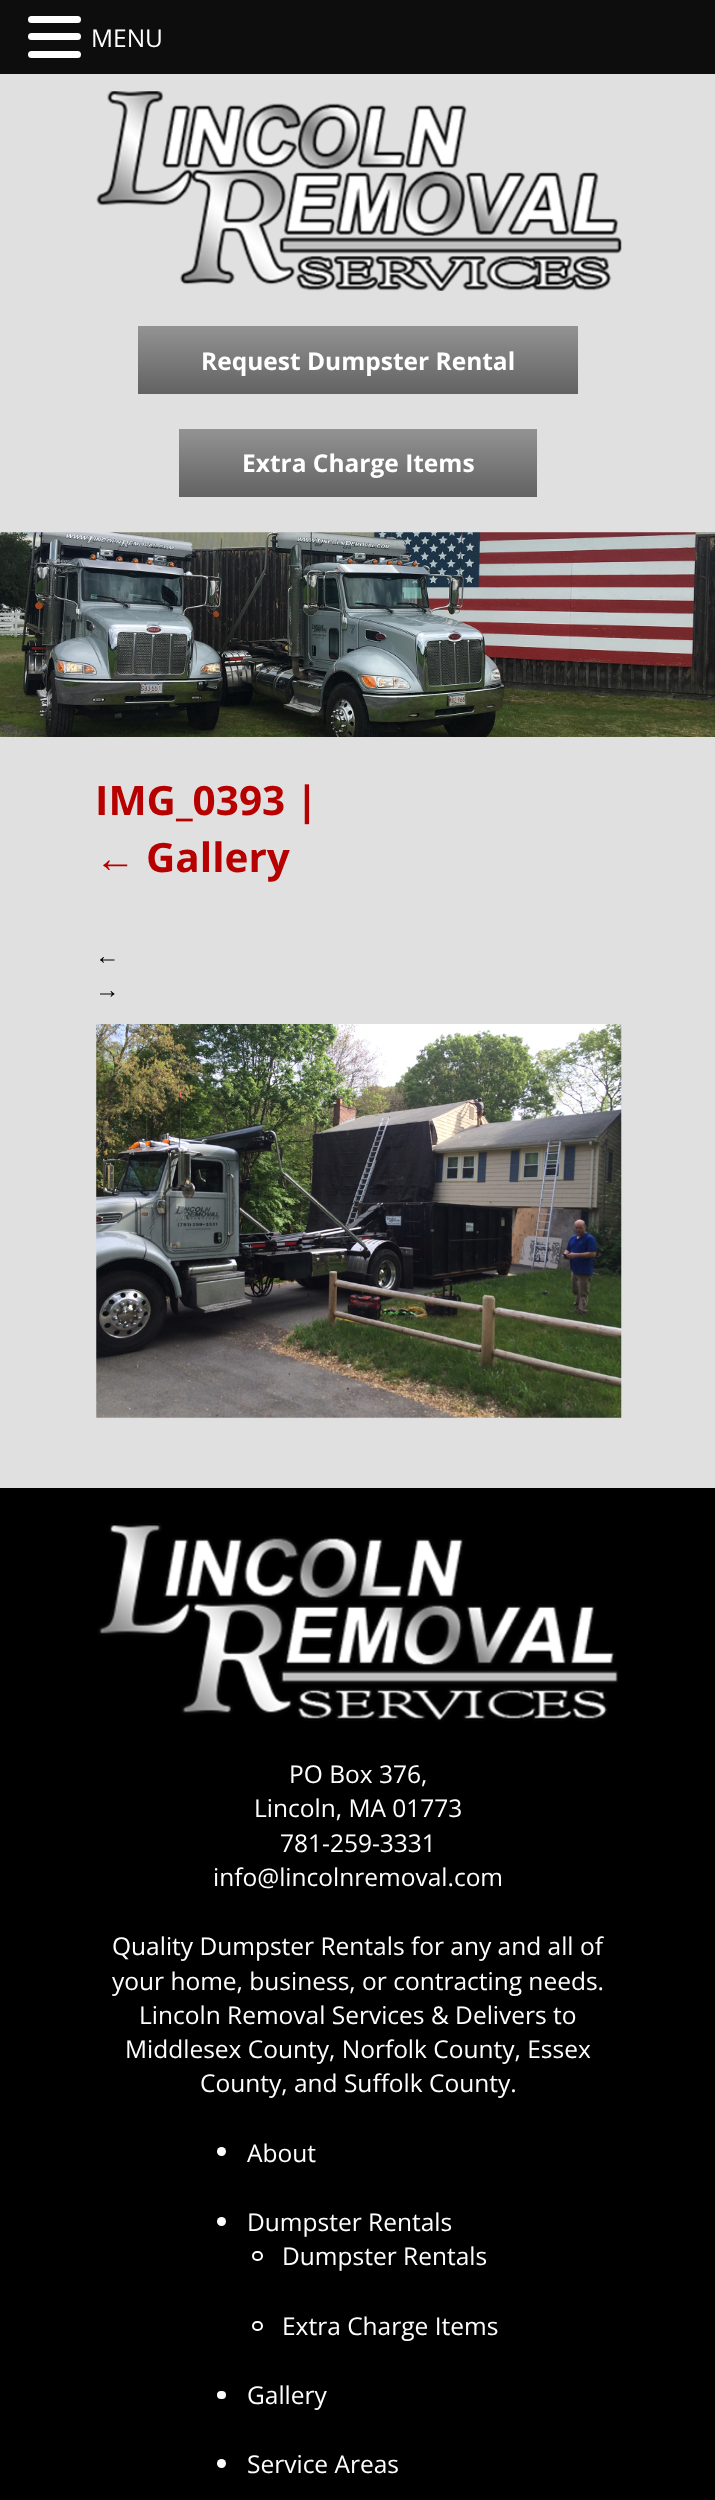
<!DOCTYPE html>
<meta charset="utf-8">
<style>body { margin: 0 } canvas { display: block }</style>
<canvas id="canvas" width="715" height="2500"></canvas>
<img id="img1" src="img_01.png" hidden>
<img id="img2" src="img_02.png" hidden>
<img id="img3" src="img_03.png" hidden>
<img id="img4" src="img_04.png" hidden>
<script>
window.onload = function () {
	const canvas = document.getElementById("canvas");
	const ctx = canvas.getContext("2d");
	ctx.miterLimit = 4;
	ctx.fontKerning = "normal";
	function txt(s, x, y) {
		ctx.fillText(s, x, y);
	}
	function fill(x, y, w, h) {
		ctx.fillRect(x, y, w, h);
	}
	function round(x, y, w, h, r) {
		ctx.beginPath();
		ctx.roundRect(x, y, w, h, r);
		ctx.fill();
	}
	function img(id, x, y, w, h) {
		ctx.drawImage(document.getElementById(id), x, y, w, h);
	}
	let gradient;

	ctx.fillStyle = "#E0E0E0";
	fill(0, 0, 715, 2500);
	ctx.fillStyle = "#0D0D0D";
	fill(0, 0, 715, 74);
	ctx.fillStyle = "#FFFFFF";
	round(28, 16, 53, 7, 3.5);
	round(28, 33, 53, 7, 3.5);
	round(28, 51, 53, 7, 3.5);
	img("img1", 96, 91, 526, 200);
	gradient = ctx.createLinearGradient(358, 326, 358, 394);
	gradient.addColorStop(0, "#939393");
	gradient.addColorStop(1, "#626263");
	ctx.fillStyle = gradient;
	fill(138, 326, 440, 68);
	gradient = ctx.createLinearGradient(358, 429, 358, 497);
	gradient.addColorStop(0, "#939393");
	gradient.addColorStop(1, "#626263");
	ctx.fillStyle = gradient;
	fill(179, 429, 358, 68);
	img("img2", 0, 532, 715, 205);
	img("img3", 96, 1024, 526, 394);
	ctx.fillStyle = "#000000";
	fill(0, 1488, 715, 1012);
	img("img4", 97, 1523, 522, 199);
	ctx.fillStyle = "#FFFFFF";
	ctx.beginPath();
	ctx.arc(221.5, 2151.5, 4.5, 0, Math.PI * 2);
	ctx.fill();
	ctx.beginPath();
	ctx.arc(221.5, 2221.5, 4.5, 0, Math.PI * 2);
	ctx.fill();
	ctx.beginPath();
	ctx.roundRect(253, 2252, 9, 8, 4);
	ctx.strokeStyle = "#FFFFFF";
	ctx.lineWidth = 2;
	ctx.stroke();
	ctx.beginPath();
	ctx.roundRect(253, 2322, 9, 8, 4);
	ctx.stroke();
	round(217, 2391, 9, 8, 4);
	ctx.beginPath();
	ctx.arc(221.5, 2463.5, 4.5, 0, Math.PI * 2);
	ctx.fill();
	ctx.font = "24.5px Open Sans";
	txt("MENU", 91, 47);
	ctx.font = "bold 24.5px Open Sans";
	txt("Request Dumpster Rental", 201, 370);
	txt("Extra Charge Items", 242, 472);
	ctx.font = "bold 40.5px Open Sans";
	ctx.fillStyle = "#B70000";
	txt("IMG_0393 |", 95, 815);
	ctx.font = "bold 40.5px Liberation Sans";
	txt("←", 95, 872);
	ctx.font = "bold 40.5px Open Sans";
	txt("Gallery", 146, 872);
	ctx.font = "24.5px Liberation Sans";
	ctx.fillStyle = "#000000";
	txt("←", 95, 964);
	txt("→", 95, 998);
	ctx.font = "24.5px Open Sans";
	ctx.fillStyle = "#FFFFFF";
	txt("PO Box 376,", 289, 1783);
	txt("Lincoln, MA 01773", 254, 1817);
	txt("781-259-3331", 280, 1852);
	txt("info@lincolnremoval.com", 213, 1886);
	txt("Quality Dumpster Rentals for any and all of", 112, 1955);
	txt("your home, business, or contracting needs.", 112, 1990);
	txt("Lincoln Removal Services & Delivers to", 139, 2024);
	txt("Middlesex County, Norfolk County, Essex", 125, 2058);
	txt("County, and Suffolk County.", 200, 2092);
	txt("About", 247, 2162);
	txt("Dumpster Rentals", 247, 2231);
	txt("Dumpster Rentals", 282, 2265);
	txt("Extra Charge Items", 282, 2335);
	txt("Gallery", 247, 2404);
	txt("Service Areas", 247, 2473);
};
</script>
